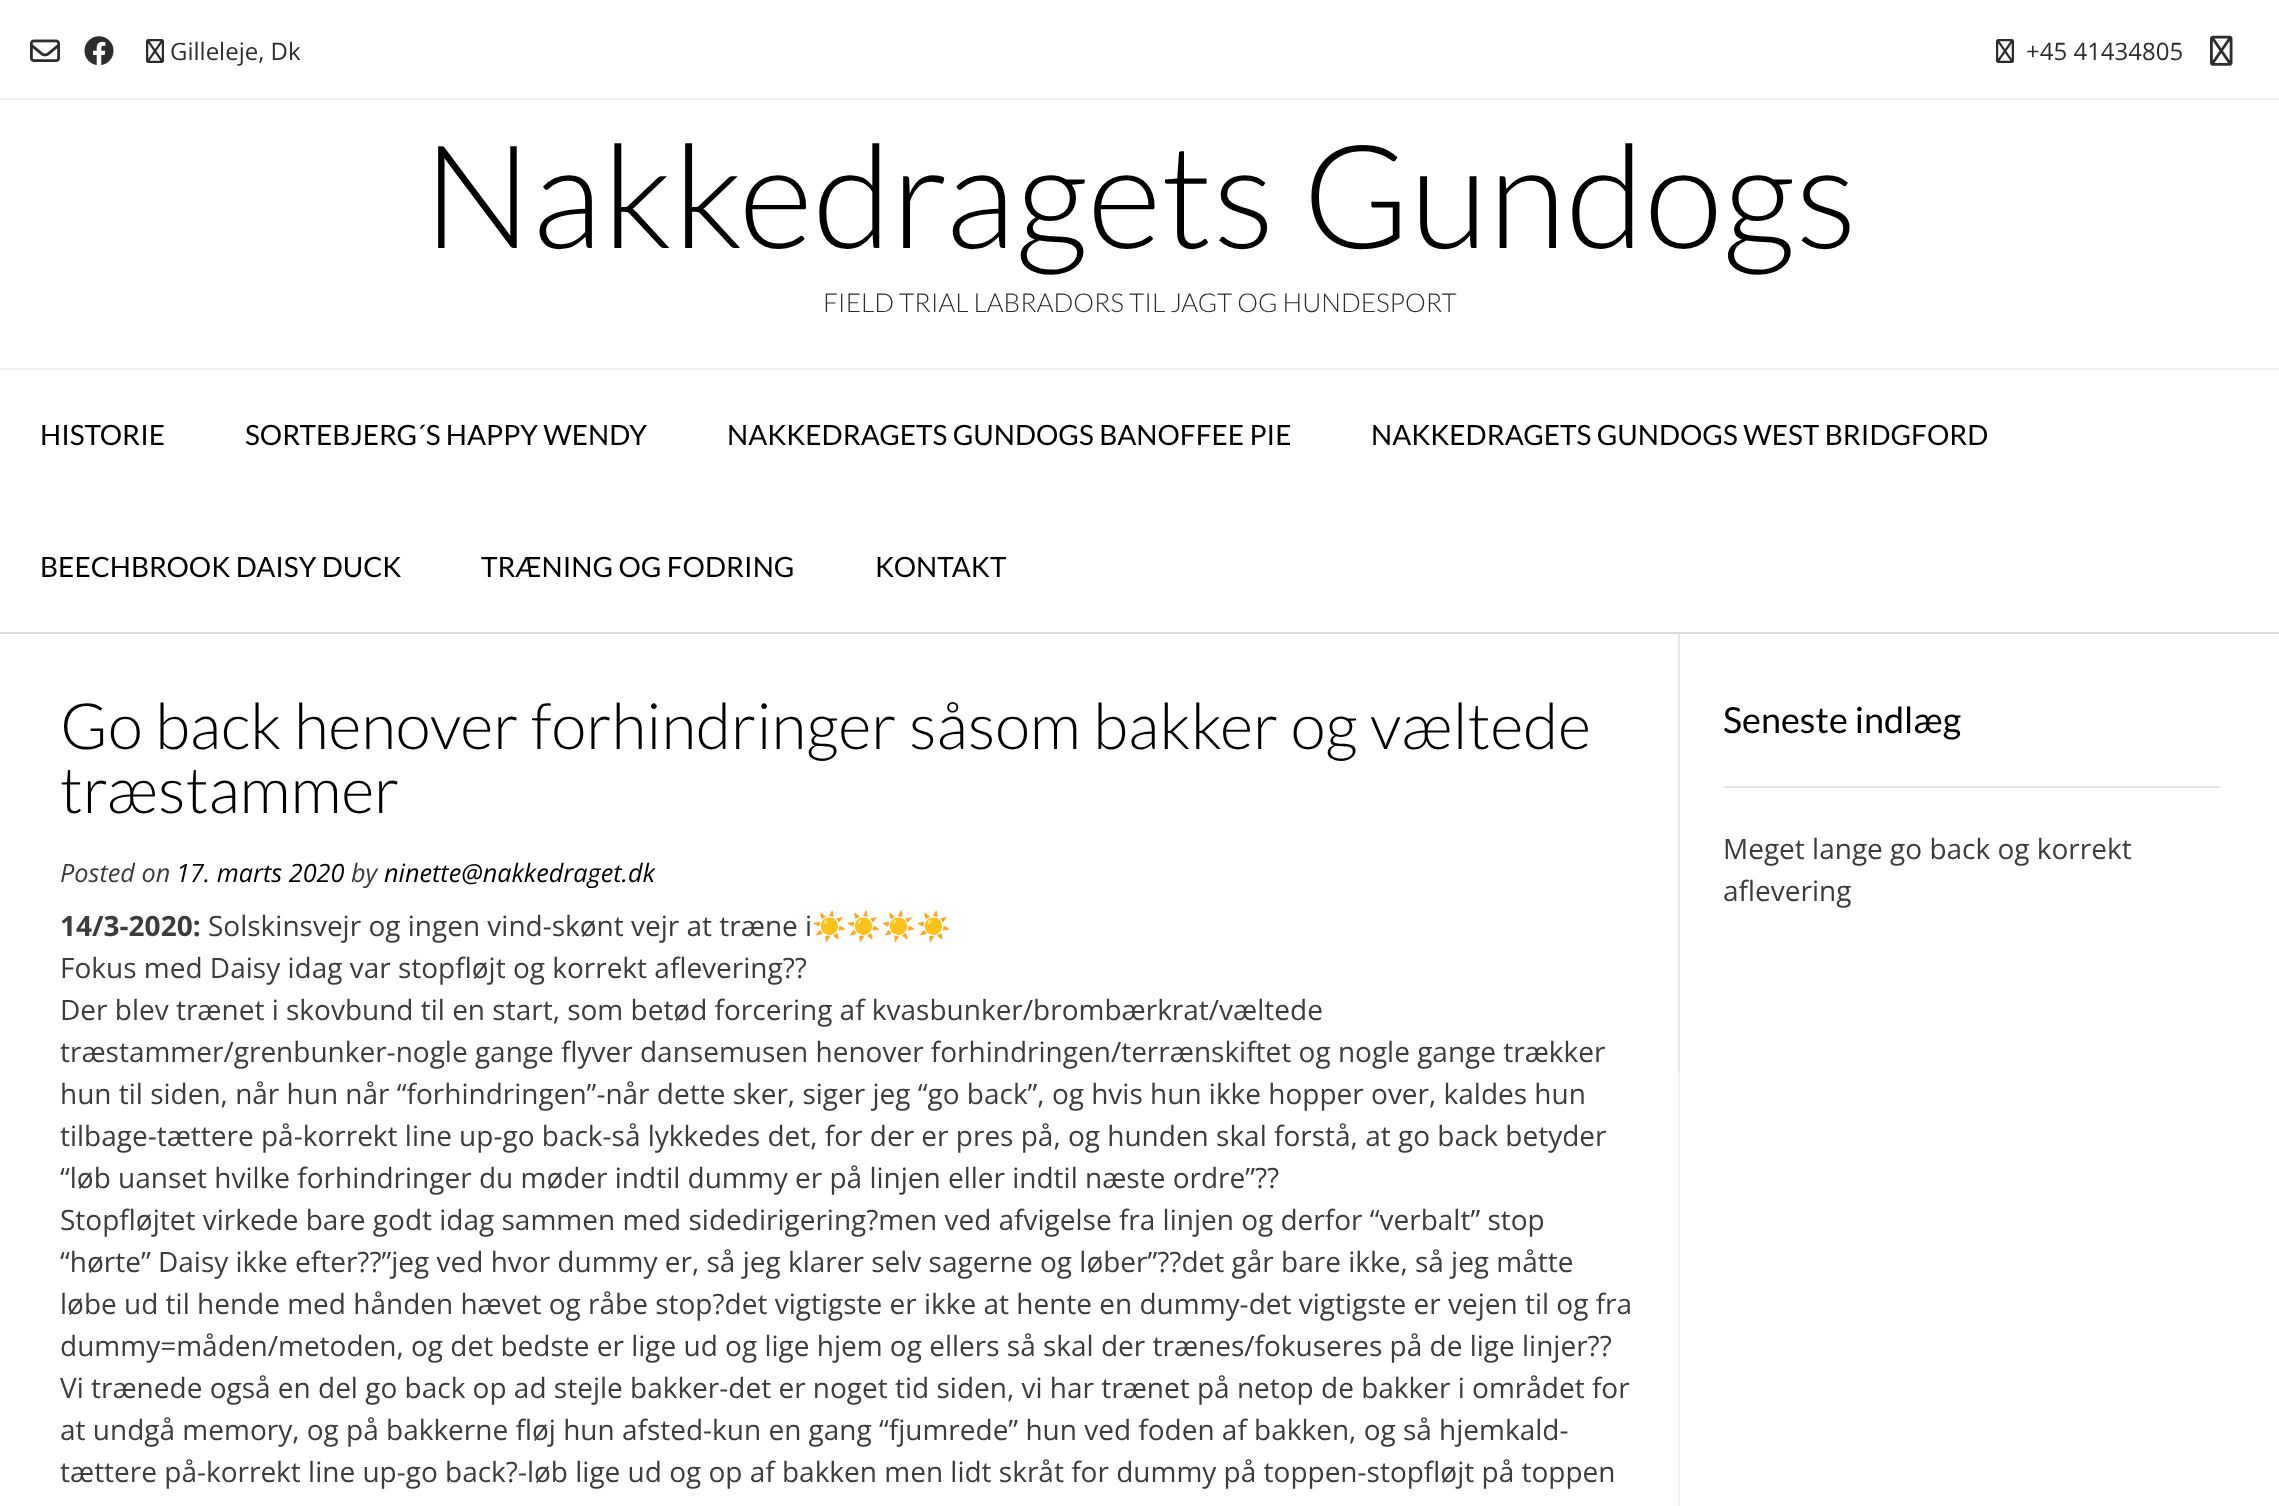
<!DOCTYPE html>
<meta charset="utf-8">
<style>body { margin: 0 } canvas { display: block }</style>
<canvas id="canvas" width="2279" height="1506"></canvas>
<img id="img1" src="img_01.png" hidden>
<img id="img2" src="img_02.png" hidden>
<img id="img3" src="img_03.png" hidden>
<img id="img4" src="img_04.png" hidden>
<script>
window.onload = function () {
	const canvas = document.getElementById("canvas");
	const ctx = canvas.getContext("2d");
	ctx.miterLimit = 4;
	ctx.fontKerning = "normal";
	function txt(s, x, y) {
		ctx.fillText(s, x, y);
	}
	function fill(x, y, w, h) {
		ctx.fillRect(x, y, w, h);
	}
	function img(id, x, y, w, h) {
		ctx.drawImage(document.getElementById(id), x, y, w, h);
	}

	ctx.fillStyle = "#FFFFFF";
	fill(0, 0, 2279, 1506);
	ctx.fillStyle = "#F0F0F0";
	fill(1678, 1072, 2, 434);
	ctx.fillStyle = "#DBDBDB";
	fill(0, 632, 2279, 2);
	ctx.fillStyle = "#EFEFEF";
	fill(0, 98, 2279, 2);
	img("img1", 30, 39, 30, 23);
	img("img2", 84, 36, 30, 29);
	img("img3", 146, 39, 18, 24);
	img("img3", 1996, 39, 18, 24);
	img("img4", 2210, 35, 23, 31);
	fill(0, 368, 2279, 2);
	ctx.fillStyle = "#E6E6E6";
	fill(1678, 634, 2, 438);
	fill(1724, 786, 496, 2);
	ctx.font = "24px Open Sans";
	ctx.fillStyle = "#2D2D2D";
	txt("Gilleleje, Dk", 170, 60);
	txt("+45 41434805", 2026, 60);
	ctx.font = "300 144px Lato";
	ctx.fillStyle = "#000000";
	txt("Nakkedragets Gundogs", 423, 248);
	ctx.font = "300 26px Lato";
	ctx.fillStyle = "#2D2D2D";
	txt("FIELD TRIAL LABRADORS TIL JAGT OG HUNDESPORT", 823, 312);
	ctx.font = "28px Lato";
	ctx.fillStyle = "#000000";
	txt("HISTORIE", 40, 445);
	txt("SORTEBJERG´S HAPPY WENDY", 245, 445);
	txt("NAKKEDRAGETS GUNDOGS BANOFFEE PIE", 727, 445);
	txt("NAKKEDRAGETS GUNDOGS WEST BRIDGFORD", 1371, 445);
	txt("BEECHBROOK DAISY DUCK", 40, 577);
	txt("TRÆNING OG FODRING", 481, 577);
	txt("KONTAKT", 875, 577);
	ctx.font = "300 64px Lato";
	txt("Go back henover forhindringer såsom bakker og væltede", 60, 749);
	txt("træstammer", 60, 813);
	ctx.font = "italic 25.25px Open Sans";
	ctx.fillStyle = "#3C3C3C";
	txt("Posted on", 60, 882);
	ctx.fillStyle = "#000000";
	txt("17. marts 2020", 176, 882);
	ctx.fillStyle = "#3C3C3C";
	txt("by", 351, 882);
	ctx.fillStyle = "#000000";
	txt("ninette@nakkedraget.dk", 384, 882);
	ctx.font = "bold 28px Open Sans";
	ctx.fillStyle = "#3C3C3C";
	txt("14/3-2020:", 60, 936);
	ctx.font = "28px Open Sans";
	txt("Solskinsvejr og ingen vind-skønt vejr at træne i", 208, 936);
	ctx.font = "28px Noto Color Emoji";
	txt("☀️☀️☀️☀️", 812, 936);
	ctx.font = "28px Open Sans";
	txt("Fokus med Daisy idag var stopfløjt og korrekt aflevering??", 60, 978);
	txt("Der blev trænet i skovbund til en start, som betød forcering af kvasbunker/brombærkrat/væltede", 60, 1020);
	txt("træstammer/grenbunker-nogle gange flyver dansemusen henover forhindringen/terrænskiftet og nogle gange trækker", 60, 1062);
	txt("hun til siden, når hun når “forhindringen”-når dette sker, siger jeg “go back”, og hvis hun ikke hopper over, kaldes hun", 60, 1104);
	txt("tilbage-tættere på-korrekt line up-go back-så lykkedes det, for der er pres på, og hunden skal forstå, at go back betyder", 60, 1146);
	txt("“løb uanset hvilke forhindringer du møder indtil dummy er på linjen eller indtil næste ordre”??", 60, 1188);
	txt("Stopfløjtet virkede bare godt idag sammen med sidedirigering?men ved afvigelse fra linjen og derfor “verbalt” stop", 60, 1230);
	txt("“hørte” Daisy ikke efter??”jeg ved hvor dummy er, så jeg klarer selv sagerne og løber”??det går bare ikke, så jeg måtte", 60, 1272);
	txt("løbe ud til hende med hånden hævet og råbe stop?det vigtigste er ikke at hente en dummy-det vigtigste er vejen til og fra", 60, 1314);
	txt("dummy=måden/metoden, og det bedste er lige ud og lige hjem og ellers så skal der trænes/fokuseres på de lige linjer??", 60, 1356);
	txt("Vi trænede også en del go back op ad stejle bakker-det er noget tid siden, vi har trænet på netop de bakker i området for", 60, 1398);
	txt("at undgå memory, og på bakkerne fløj hun afsted-kun en gang “fjumrede” hun ved foden af bakken, og så hjemkald-", 60, 1440);
	txt("tættere på-korrekt line up-go back?-løb lige ud og op af bakken men lidt skråt for dummy på toppen-stopfløjt på toppen", 60, 1482);
	ctx.font = "36px Lato";
	ctx.fillStyle = "#000000";
	txt("Seneste indlæg", 1723, 733);
	ctx.font = "28px Open Sans";
	ctx.fillStyle = "#3C3C3C";
	txt("Meget lange go back og korrekt", 1723, 859);
	txt("aflevering", 1723, 901);
};
</script>
